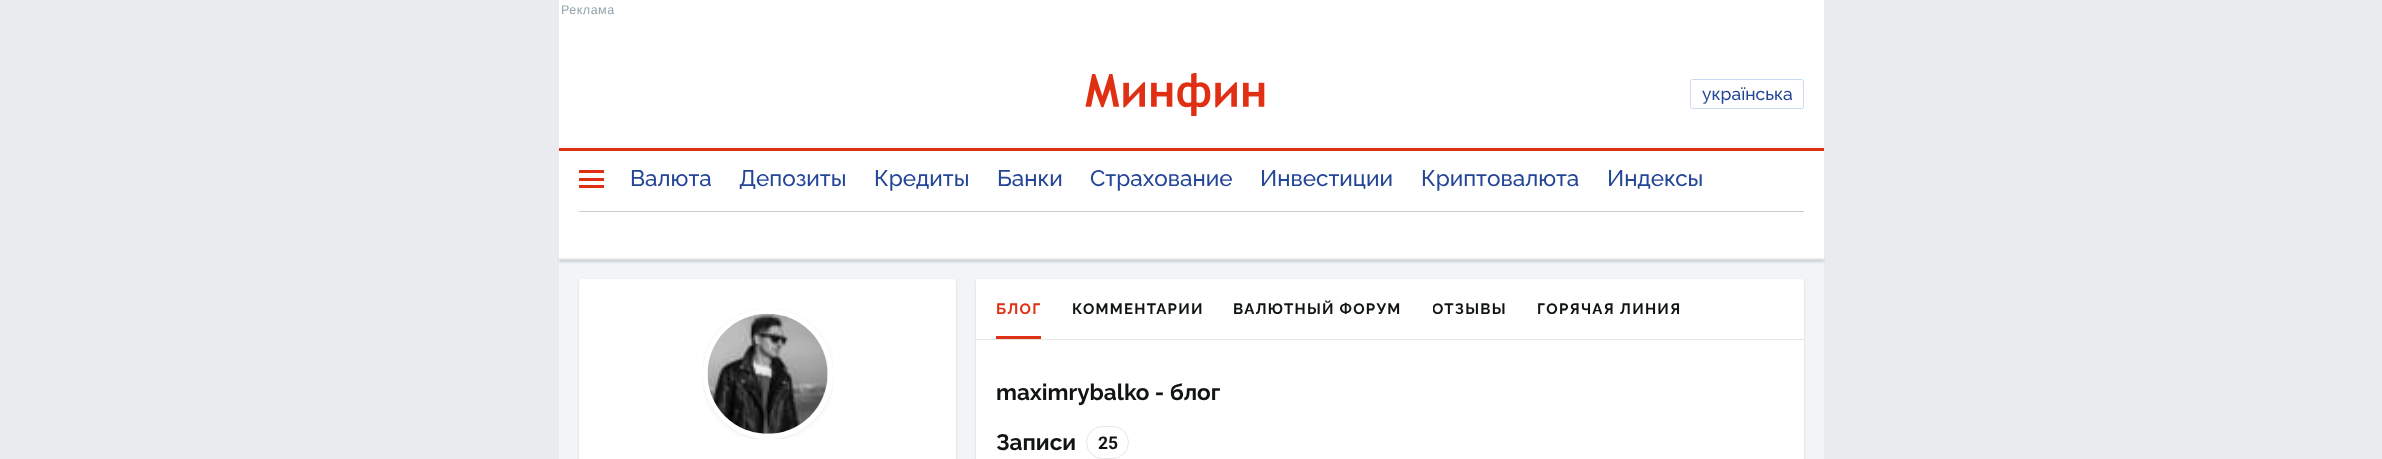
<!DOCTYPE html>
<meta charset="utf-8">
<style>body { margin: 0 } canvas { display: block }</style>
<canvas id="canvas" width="2382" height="459"></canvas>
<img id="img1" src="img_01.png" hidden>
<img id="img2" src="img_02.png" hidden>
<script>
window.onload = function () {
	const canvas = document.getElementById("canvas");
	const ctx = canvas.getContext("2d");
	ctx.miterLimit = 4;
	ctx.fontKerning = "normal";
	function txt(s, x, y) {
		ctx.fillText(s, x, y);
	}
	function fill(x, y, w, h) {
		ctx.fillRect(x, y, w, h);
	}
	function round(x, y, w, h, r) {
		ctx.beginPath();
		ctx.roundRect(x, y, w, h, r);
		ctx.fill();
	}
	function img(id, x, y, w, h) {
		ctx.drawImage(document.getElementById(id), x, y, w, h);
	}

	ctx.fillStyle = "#E9EBEE";
	fill(0, 0, 2382, 459);
	ctx.fillStyle = "#FFFFFF";
	fill(559, 0, 1265, 148);
	img("img1", 1085, 73, 180, 43);
	ctx.beginPath();
	ctx.roundRect(1690.5, 79.5, 113, 29, 2);
	ctx.strokeStyle = "#CBDAF3";
	ctx.stroke();
	fill(559, 151, 1265, 108);
	ctx.fillStyle = "#DF3014";
	fill(559, 148, 1265, 3);
	fill(579, 170, 25, 3);
	fill(579, 178, 25, 3);
	fill(579, 185, 25, 3);
	ctx.fillStyle = "#CCCCCC";
	fill(579, 211, 1225, 1);
	ctx.fillStyle = "#F2F5F8";
	fill(559, 259, 1265, 200);
	ctx.fillStyle = "rgba(0, 0, 0, 0.15)";
	ctx.filter = "blur(1px)";
	ctx.beginPath();
	ctx.rect(559, 259, 1265, 3);
	ctx.fill();
	ctx.filter = "none";
	ctx.fillStyle = "rgba(0, 0, 0, 0.14)";
	ctx.filter = "blur(1px)";
	ctx.beginPath();
	ctx.roundRect(579, 280, 377, 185, 2.5);
	ctx.fill();
	ctx.filter = "none";
	ctx.fillStyle = "#FFFFFF";
	round(579, 279, 377, 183, 2.5);
	ctx.save();
	ctx.beginPath();
	ctx.rect(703, 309, 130, 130);
	ctx.clip();
	ctx.fillStyle = "rgba(0, 0, 0, 0.08)";
	ctx.filter = "blur(2px)";
	ctx.beginPath();
	ctx.roundRect(703, 310, 130, 130, 65);
	ctx.fill();
	ctx.filter = "none";
	ctx.restore();
	ctx.beginPath();
	ctx.arc(768, 374, 62.5, 0, Math.PI * 2);
	ctx.strokeStyle = "#FFFFFF";
	ctx.lineWidth = 5;
	ctx.stroke();
	img("img2", 707, 313, 121, 121);
	ctx.fillStyle = "rgba(0, 0, 0, 0.14)";
	ctx.filter = "blur(1px)";
	ctx.beginPath();
	ctx.roundRect(976, 280, 828, 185, 2.5);
	ctx.fill();
	ctx.filter = "none";
	ctx.fillStyle = "#FFFFFF";
	round(976, 279, 828, 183, 2.5);
	ctx.fillStyle = "#E6E6E6";
	fill(976, 339, 828, 1);
	ctx.fillStyle = "#DF3115";
	fill(996, 336, 45, 3);
	ctx.beginPath();
	ctx.roundRect(1086.5, 426.5, 42, 32, 16);
	ctx.strokeStyle = "#E6E6E6";
	ctx.lineWidth = 1;
	ctx.stroke();
	ctx.letterSpacing = "0.5px";
	ctx.font = "12.5px Liberation Sans";
	ctx.fillStyle = "#93A4AC";
	txt("Реклама", 561, 14);
	ctx.letterSpacing = "0px";
	ctx.font = "500 17.5px Raleway";
	ctx.fillStyle = "#244696";
	txt("українська", 1702, 100);
	ctx.font = "500 22.5px Raleway";
	txt("Валюта", 630, 186);
	txt("Депозиты", 739, 186);
	txt("Кредиты", 874, 186);
	txt("Банки", 997, 186);
	txt("Страхование", 1090, 186);
	txt("Инвестиции", 1260, 186);
	txt("Криптовалюта", 1421, 186);
	txt("Индексы", 1607, 186);
	ctx.letterSpacing = "1.25px";
	ctx.font = "bold 15px Raleway";
	ctx.fillStyle = "#DF3115";
	txt("БЛОГ", 996, 314);
	ctx.fillStyle = "#111512";
	txt("КОММЕНТАРИИ", 1072, 314);
	txt("ВАЛЮТНЫЙ ФОРУМ", 1233, 314);
	ctx.save();
	ctx.beginPath();
	ctx.rect(1433, 279, 73, 60);
	ctx.clip();
	txt("ОТЗЫВЫ", 1432, 314);
	ctx.restore();
	txt("ГОРЯЧАЯ ЛИНИЯ", 1537, 314);
	ctx.letterSpacing = "0px";
	ctx.font = "bold 22.5px Raleway";
	txt("maximrybalko - блог", 996, 400);
	txt("Записи", 996, 450);
	ctx.font = "bold 17.5px Roboto";
	txt("25", 1098, 449);
};
</script>
